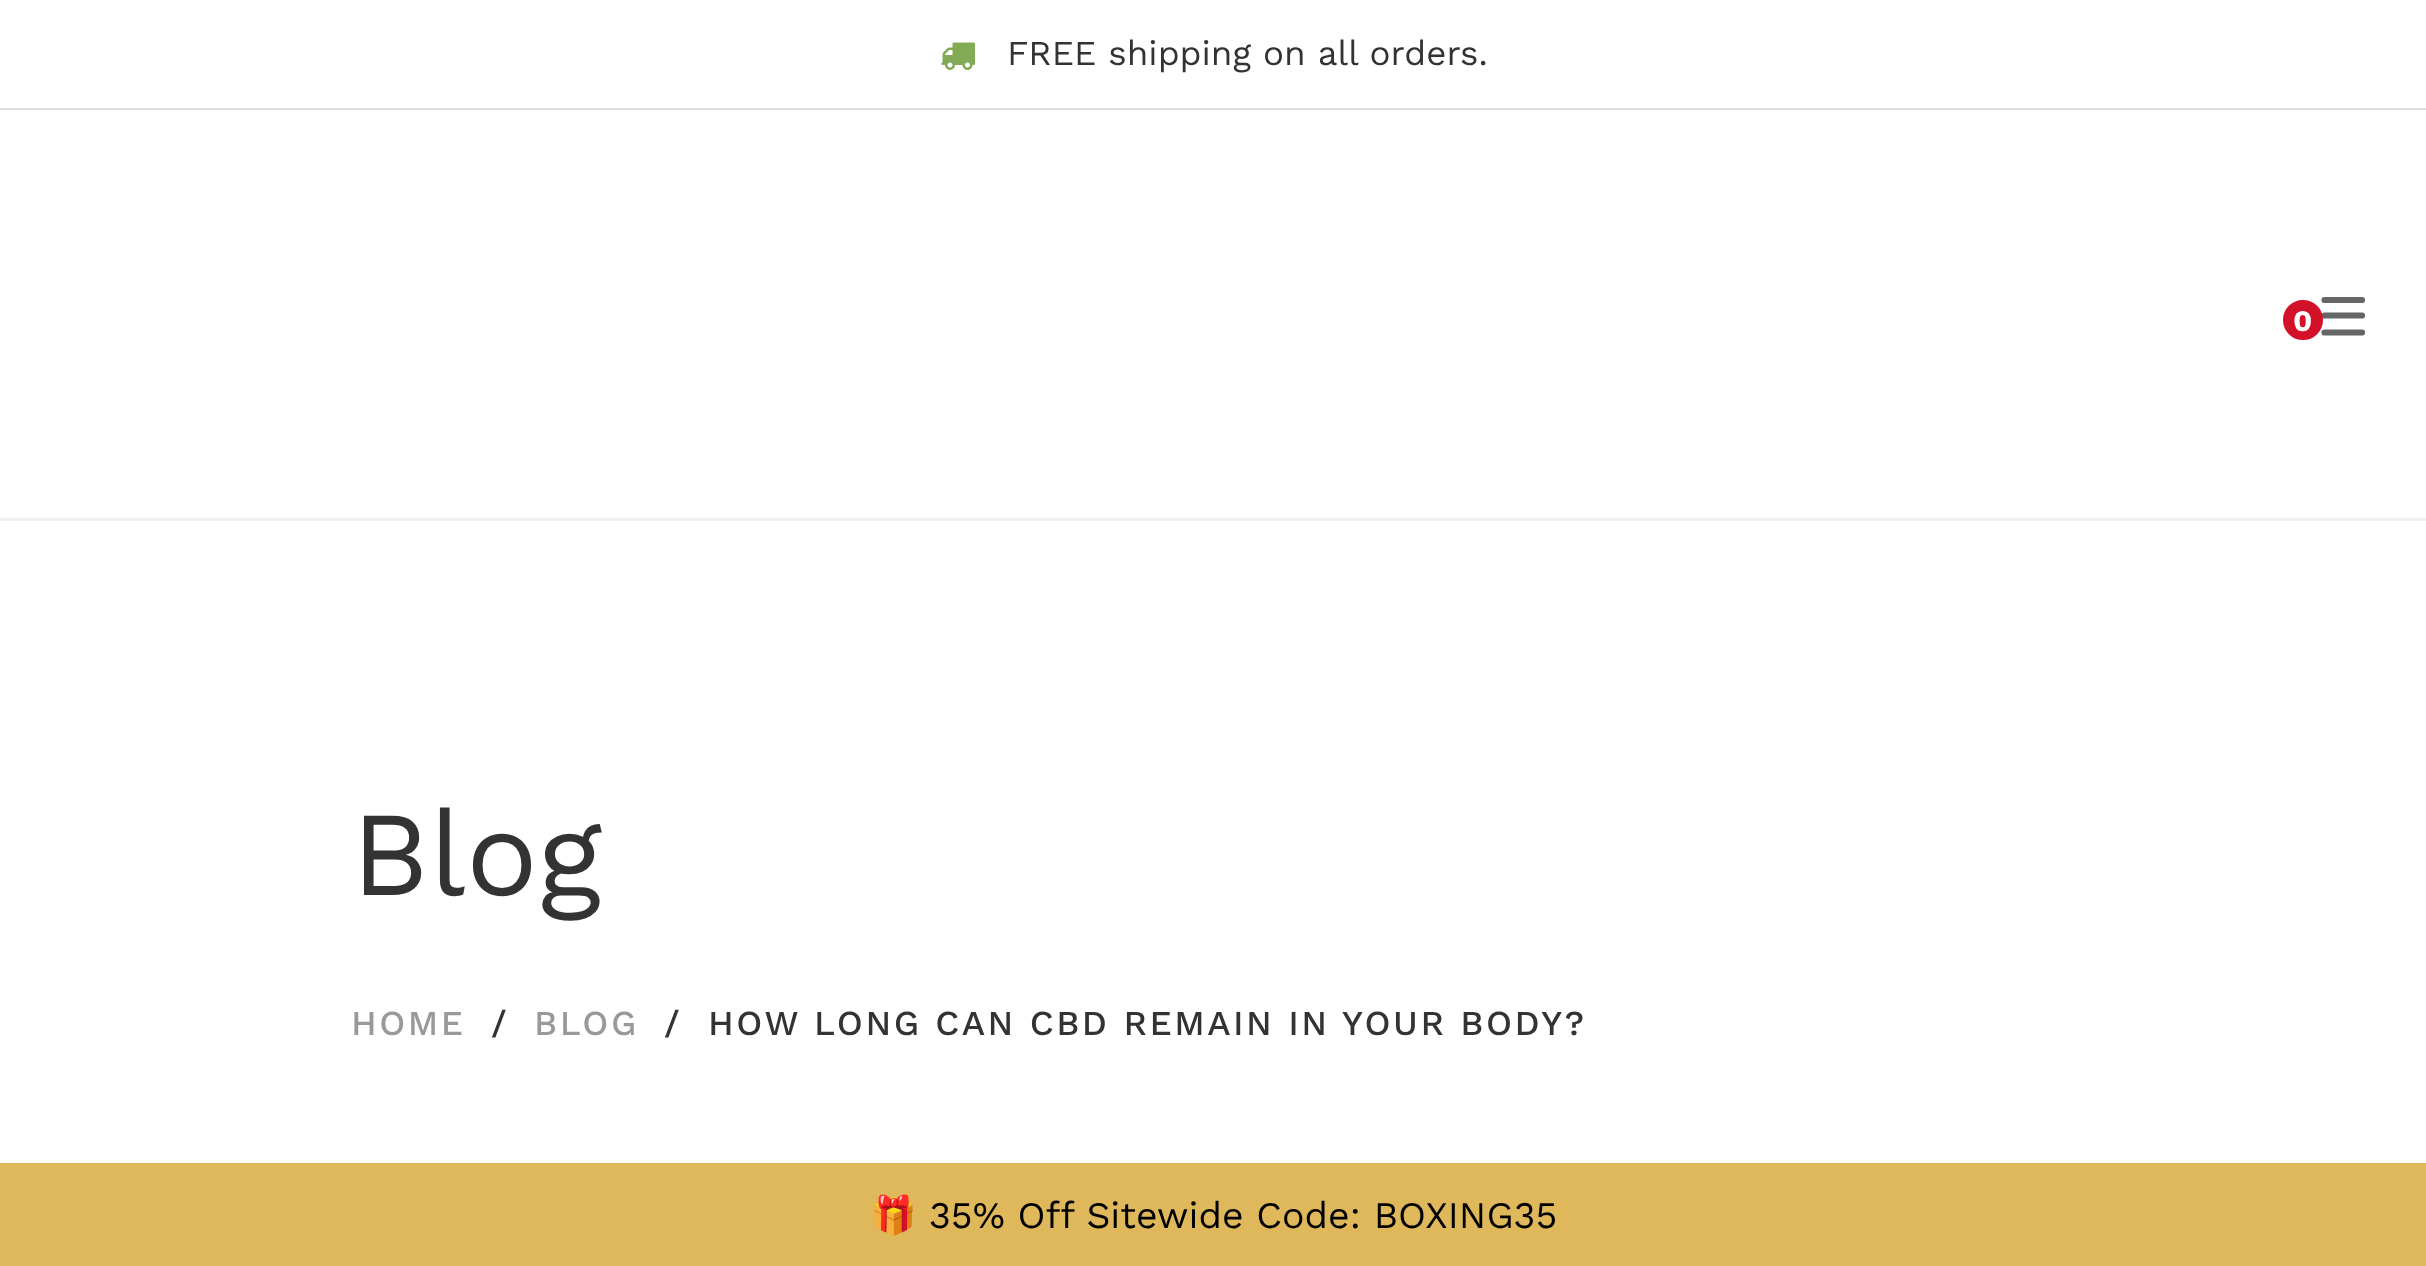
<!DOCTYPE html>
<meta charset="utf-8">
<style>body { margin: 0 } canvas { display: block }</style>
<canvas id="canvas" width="2426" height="1266"></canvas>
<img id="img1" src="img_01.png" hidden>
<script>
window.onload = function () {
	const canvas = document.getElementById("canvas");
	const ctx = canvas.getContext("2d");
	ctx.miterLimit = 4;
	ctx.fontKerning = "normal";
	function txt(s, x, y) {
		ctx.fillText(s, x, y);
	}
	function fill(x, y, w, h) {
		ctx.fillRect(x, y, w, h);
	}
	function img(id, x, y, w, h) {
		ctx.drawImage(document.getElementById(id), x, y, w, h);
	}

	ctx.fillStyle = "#FFFFFF";
	fill(0, 0, 2426, 1266);
	ctx.fillStyle = "#DEDEDE";
	fill(0, 108, 2426, 2);
	img("img1", 941, 42, 34, 28);
	ctx.fillStyle = "#EFEFEF";
	fill(0, 518, 2426, 2);
	ctx.fillStyle = "#F1F1F1";
	fill(0, 520, 2426, 1);
	ctx.beginPath();
	ctx.moveTo(2324.5, 300);
	ctx.lineTo(2362, 300);
	ctx.moveTo(2324.5, 315.5);
	ctx.lineTo(2362, 315.5);
	ctx.moveTo(2324.5, 332.5);
	ctx.lineTo(2362, 332.5);
	ctx.strokeStyle = "#666666";
	ctx.lineWidth = 6.2;
	ctx.lineCap = "round";
	ctx.stroke();
	ctx.fillStyle = "#D3122A";
	ctx.beginPath();
	ctx.arc(2303, 320, 18.5, 0, Math.PI * 2);
	ctx.fill();
	ctx.strokeStyle = "#D3122A";
	ctx.lineWidth = 3;
	ctx.stroke();
	ctx.fillStyle = "#DFB85C";
	fill(0, 1163, 2426, 103);
	ctx.font = "35px Work Sans";
	ctx.fillStyle = "#333333";
	txt("FREE shipping on all orders.", 1007, 65);
	ctx.font = "bold 30px Work Sans";
	ctx.fillStyle = "#FFFFFF";
	txt("0", 2293, 331);
	ctx.font = "120px Work Sans";
	ctx.fillStyle = "#333333";
	txt("Blog", 351, 895);
	ctx.letterSpacing = "2.5px";
	ctx.font = "500 35px Work Sans";
	ctx.fillStyle = "#999999";
	txt("HOME", 351, 1035);
	ctx.fillStyle = "#333333";
	txt("/", 491, 1035);
	ctx.fillStyle = "#999999";
	txt("BLOG", 534, 1035);
	ctx.fillStyle = "#333333";
	txt("/", 664, 1035);
	txt("HOW LONG CAN CBD REMAIN IN YOUR BODY?", 708, 1035);
	ctx.letterSpacing = "0px";
	ctx.font = "37.5px Noto Color Emoji";
	ctx.fillStyle = "#000000";
	txt("🎁", 870, 1228);
	ctx.font = "37.5px Work Sans";
	txt("35% Off Sitewide Code: BOXING35", 929, 1228);
};
</script>
